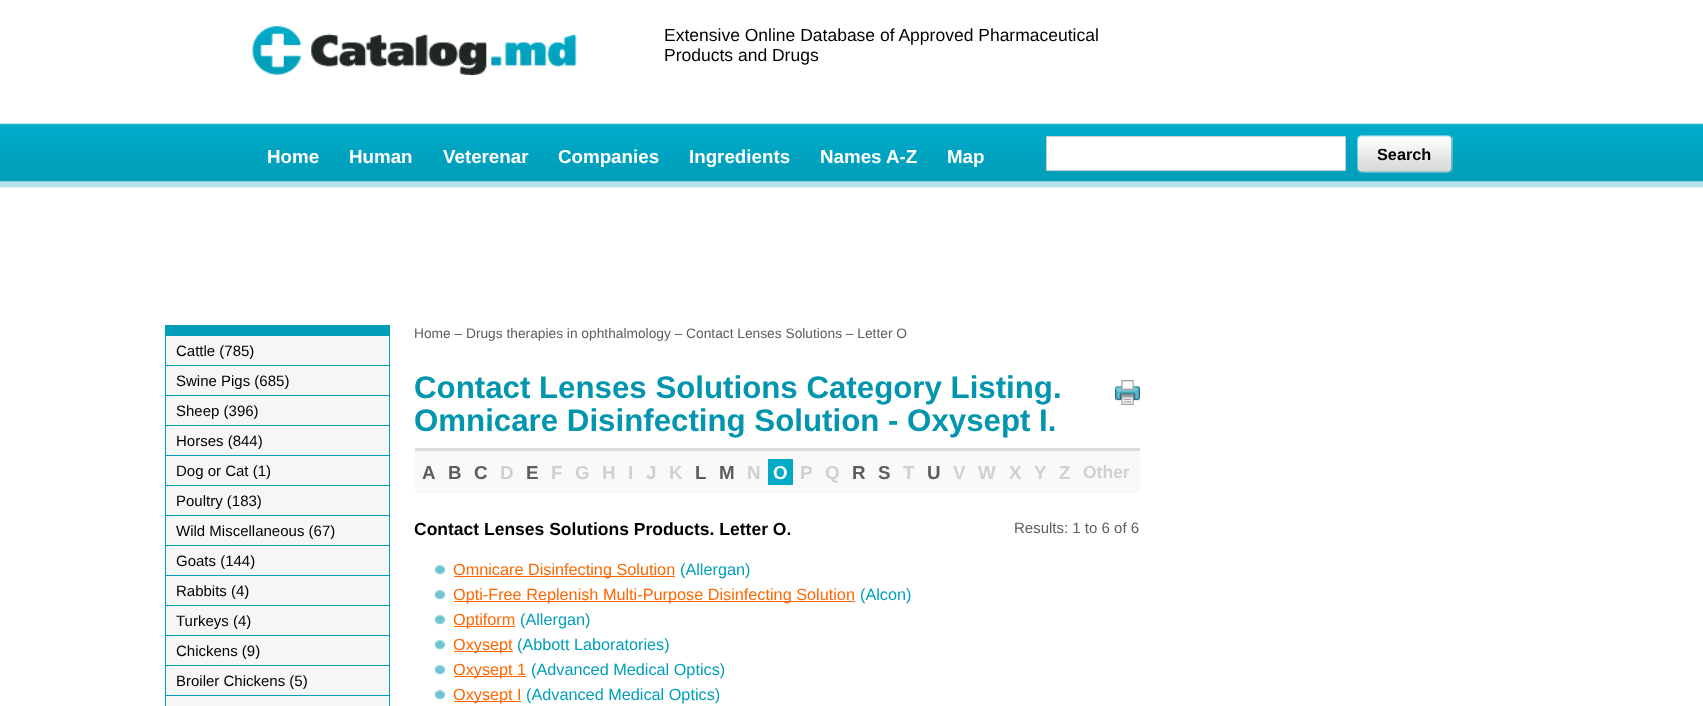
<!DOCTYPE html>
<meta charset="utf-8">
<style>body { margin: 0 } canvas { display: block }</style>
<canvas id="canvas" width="1703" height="706"></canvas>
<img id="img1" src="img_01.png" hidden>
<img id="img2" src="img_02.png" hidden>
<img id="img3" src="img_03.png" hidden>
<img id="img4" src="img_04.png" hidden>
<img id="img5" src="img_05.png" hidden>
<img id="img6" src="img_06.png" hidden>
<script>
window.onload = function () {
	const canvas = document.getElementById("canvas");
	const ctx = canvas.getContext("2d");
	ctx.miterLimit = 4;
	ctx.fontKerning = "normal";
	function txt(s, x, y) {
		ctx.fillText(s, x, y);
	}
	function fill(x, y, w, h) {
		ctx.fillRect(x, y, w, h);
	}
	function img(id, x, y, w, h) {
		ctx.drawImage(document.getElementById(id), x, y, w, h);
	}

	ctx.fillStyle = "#FFFFFF";
	fill(0, 0, 1703, 706);
	img("img1", 252, 26, 325, 49);
	img("img2", 0, 123, 1703, 65);
	ctx.beginPath();
	ctx.rect(1046.5, 136.5, 299, 34);
	ctx.fill();
	ctx.strokeStyle = "#CCCCCC";
	ctx.stroke();
	img("img3", 1357, 135, 96, 38);
	img("img4", 1363, 135, 90, 38);
	ctx.fillStyle = "#F6F6F6";
	fill(166, 336, 223, 370);
	ctx.fillStyle = "#009EB9";
	fill(166, 325, 223, 11);
	fill(389, 325, 1, 381);
	fill(165, 325, 1, 381);
	fill(166, 365, 223, 1);
	fill(166, 395, 223, 1);
	fill(166, 425, 223, 1);
	fill(166, 455, 223, 1);
	fill(166, 485, 223, 1);
	fill(166, 515, 223, 1);
	fill(166, 545, 223, 1);
	fill(166, 575, 223, 1);
	fill(166, 605, 223, 1);
	fill(166, 635, 223, 1);
	fill(166, 665, 223, 1);
	fill(166, 695, 223, 1);
	img("img5", 1115, 380, 25, 25);
	ctx.fillStyle = "#DBDBDB";
	fill(415, 448, 725, 3);
	ctx.fillStyle = "#F9F9F9";
	fill(415, 451, 725, 43);
	ctx.fillStyle = "#00AAC7";
	fill(768, 459, 25, 26);
	img("img6", 435, 565, 10, 10);
	ctx.fillStyle = "#FF6600";
	fill(454, 576, 221, 1);
	img("img6", 435, 590, 10, 10);
	fill(454, 601, 401, 1);
	img("img6", 435, 615, 10, 10);
	fill(454, 626, 61, 1);
	img("img6", 435, 640, 10, 10);
	fill(454, 651, 59, 1);
	img("img6", 435, 665, 10, 10);
	fill(454, 676, 72, 1);
	img("img6", 435, 690, 10, 10);
	fill(454, 701, 67, 1);
	ctx.font = "17.5px Liberation Sans";
	ctx.fillStyle = "#000000";
	txt("Extensive Online Database of Approved Pharmaceutical", 664, 41);
	txt("Products and Drugs", 664, 61);
	ctx.font = "bold 18.75px Liberation Sans";
	ctx.fillStyle = "#FFFFFF";
	txt("Home", 267, 163);
	txt("Human", 349, 163);
	txt("Veterenar", 443, 163);
	txt("Companies", 558, 163);
	txt("Ingredients", 689, 163);
	txt("Names A-Z", 820, 163);
	txt("Map", 947, 163);
	ctx.font = "bold 16.25px Liberation Sans";
	ctx.fillStyle = "#000000";
	txt("Search", 1377, 160);
	ctx.font = "15px Liberation Sans";
	txt("Cattle (785)", 176, 356);
	txt("Swine Pigs (685)", 176, 386);
	txt("Sheep (396)", 176, 416);
	txt("Horses (844)", 176, 446);
	txt("Dog or Cat (1)", 176, 476);
	txt("Poultry (183)", 176, 506);
	txt("Wild Miscellaneous (67)", 176, 536);
	txt("Goats (144)", 176, 566);
	txt("Rabbits (4)", 176, 596);
	txt("Turkeys (4)", 176, 626);
	txt("Chickens (9)", 176, 656);
	txt("Broiler Chickens (5)", 176, 686);
	ctx.font = "13.75px Liberation Sans";
	ctx.fillStyle = "#5E5D5D";
	txt("Home – Drugs therapies in ophthalmology – Contact Lenses Solutions – Letter O", 414, 338);
	ctx.font = "bold 31.25px Liberation Sans";
	ctx.fillStyle = "#0195AE";
	txt("Contact Lenses Solutions Category Listing.", 414, 398);
	txt("Omnicare Disinfecting Solution - Oxysept I.", 414, 431);
	ctx.font = "bold 18.75px Liberation Sans";
	ctx.fillStyle = "#5E5D5D";
	txt("A", 422, 479);
	txt("B", 448, 479);
	txt("C", 474, 479);
	ctx.fillStyle = "#D0D0D0";
	txt("D", 500, 479);
	ctx.fillStyle = "#5E5D5D";
	txt("E", 526, 479);
	ctx.fillStyle = "#D0D0D0";
	txt("F", 551, 479);
	txt("G", 575, 479);
	txt("H", 602, 479);
	txt("I", 628, 479);
	txt("J", 646, 479);
	txt("K", 669, 479);
	ctx.fillStyle = "#5E5D5D";
	txt("L", 695, 479);
	txt("M", 719, 479);
	ctx.fillStyle = "#D0D0D0";
	txt("N", 747, 479);
	ctx.fillStyle = "#FFFFFF";
	txt("O", 773, 479);
	ctx.fillStyle = "#D0D0D0";
	txt("P", 800, 479);
	txt("Q", 825, 479);
	ctx.fillStyle = "#5E5D5D";
	txt("R", 852, 479);
	txt("S", 878, 479);
	ctx.fillStyle = "#D0D0D0";
	txt("T", 903, 479);
	ctx.fillStyle = "#5E5D5D";
	txt("U", 927, 479);
	ctx.fillStyle = "#D0D0D0";
	txt("V", 953, 479);
	txt("W", 978, 479);
	txt("X", 1009, 479);
	txt("Y", 1034, 479);
	txt("Z", 1059, 479);
	ctx.font = "bold 17.5px Liberation Sans";
	txt("Other", 1083, 478);
	ctx.fillStyle = "#000000";
	txt("Contact Lenses Solutions Products. Letter O.", 414, 535);
	ctx.font = "15px Liberation Sans";
	ctx.fillStyle = "#5E5D5D";
	txt("Results: 1 to 6 of 6", 1014, 533);
	ctx.font = "16.25px Liberation Sans";
	ctx.fillStyle = "#FF6600";
	txt("Omnicare Disinfecting Solution", 453, 575);
	ctx.fillStyle = "#009EB9";
	txt("(Allergan)", 680, 575);
	ctx.fillStyle = "#FF6600";
	txt("Opti-Free Replenish Multi-Purpose Disinfecting Solution", 453, 600);
	ctx.fillStyle = "#009EB9";
	txt("(Alcon)", 860, 600);
	ctx.fillStyle = "#FF6600";
	txt("Optiform", 453, 625);
	ctx.fillStyle = "#009EB9";
	txt("(Allergan)", 520, 625);
	ctx.fillStyle = "#FF6600";
	txt("Oxysept", 453, 650);
	ctx.fillStyle = "#009EB9";
	txt("(Abbott Laboratories)", 517, 650);
	ctx.fillStyle = "#FF6600";
	txt("Oxysept 1", 453, 675);
	ctx.fillStyle = "#009EB9";
	txt("(Advanced Medical Optics)", 531, 675);
	ctx.fillStyle = "#FF6600";
	txt("Oxysept I", 453, 700);
	ctx.fillStyle = "#009EB9";
	txt("(Advanced Medical Optics)", 526, 700);
};
</script>
